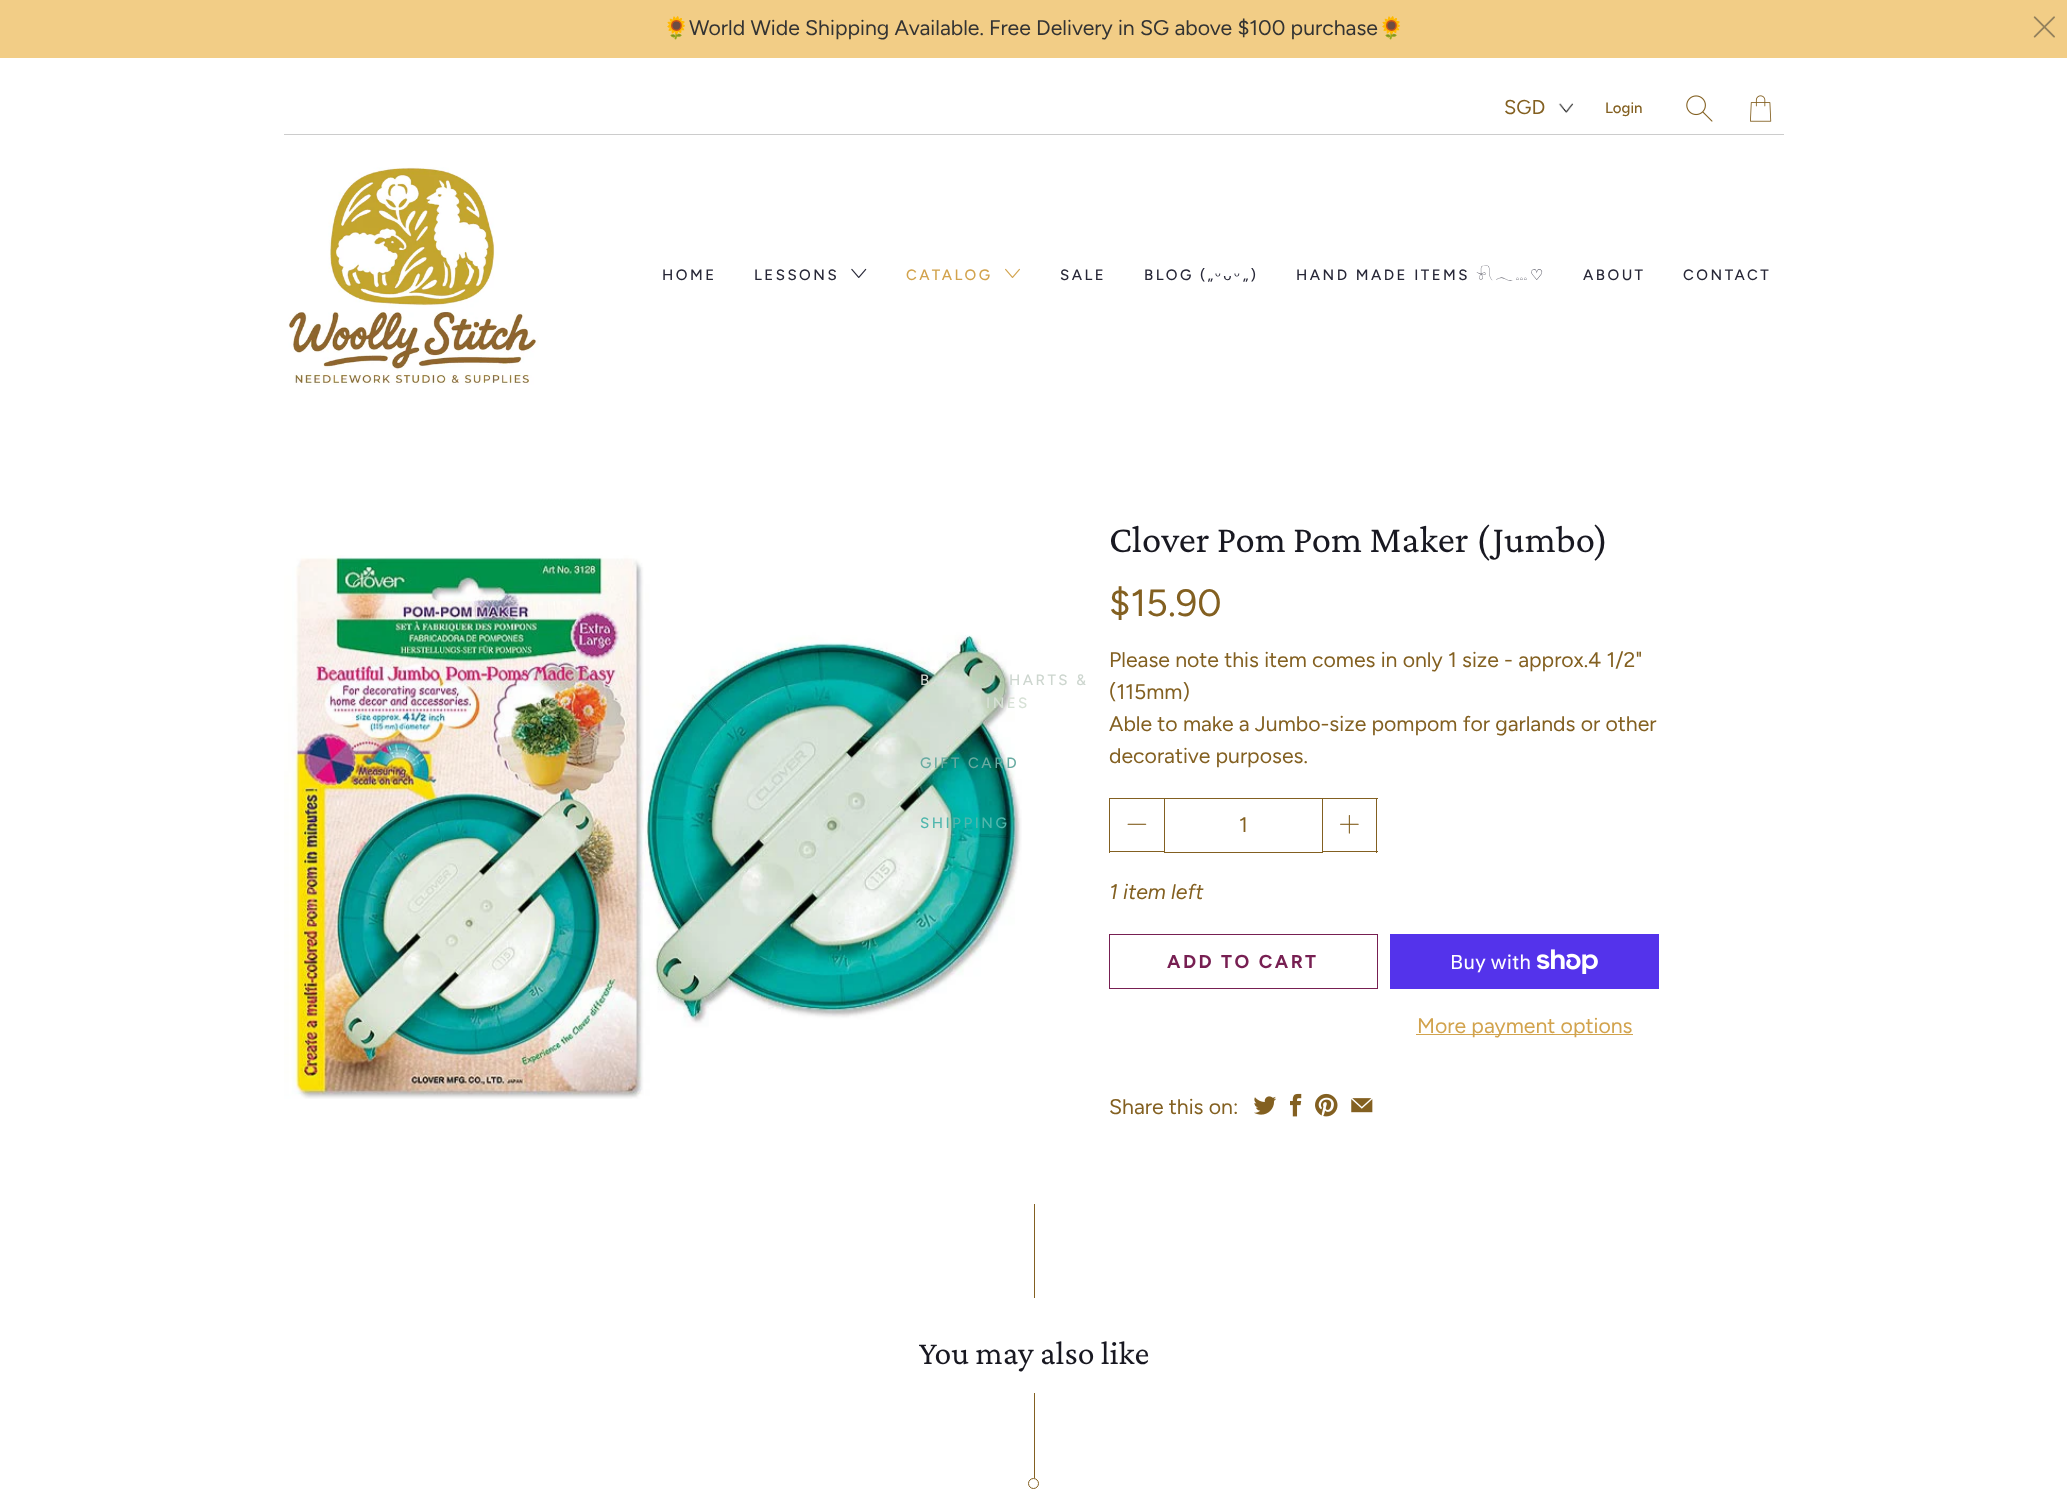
<!DOCTYPE html>
<meta charset="utf-8">
<style>body { margin: 0 } canvas { display: block }</style>
<canvas id="canvas" width="2067" height="1504"></canvas>
<img id="img1" src="img_01.png" hidden>
<img id="img2" src="img_02.png" hidden>
<img id="img3" src="img_03.png" hidden>
<img id="img4" src="img_04.png" hidden>
<img id="img5" src="img_05.png" hidden>
<img id="img6" src="img_06.png" hidden>
<img id="img7" src="img_07.png" hidden>
<img id="img8" src="img_08.png" hidden>
<img id="img9" src="img_09.png" hidden>
<img id="img10" src="img_10.png" hidden>
<img id="img11" src="img_11.png" hidden>
<img id="img12" src="img_12.png" hidden>
<img id="img13" src="img_13.png" hidden>
<img id="img14" src="img_14.png" hidden>
<img id="img15" src="img_15.png" hidden>
<script>
window.onload = function () {
	const canvas = document.getElementById("canvas");
	const ctx = canvas.getContext("2d");
	ctx.miterLimit = 4;
	ctx.fontKerning = "normal";
	function txt(s, x, y) {
		ctx.fillText(s, x, y);
	}
	function fill(x, y, w, h) {
		ctx.fillRect(x, y, w, h);
	}
	function img(id, x, y, w, h) {
		ctx.drawImage(document.getElementById(id), x, y, w, h);
	}

	ctx.fillStyle = "#FFFFFF";
	fill(0, 0, 2067, 1504);
	ctx.fillStyle = "#F2CD86";
	fill(0, 0, 2067, 58);
	img("img1", 2033, 16, 22, 22);
	ctx.fillStyle = "#CCCCCC";
	fill(284, 134, 1500, 1);
	img("img2", 1558, 103, 16, 10);
	img("img3", 1686, 95, 27, 27);
	img("img4", 1750, 95, 22, 27);
	img("img5", 288, 167, 251, 218);
	img("img6", 851, 268, 16, 10);
	img("img7", 1005, 268, 15, 10);
	img("img8", 284, 555, 738, 544);
	ctx.fillStyle = "#836021";
	fill(1109, 798, 55, 1);
	fill(1109, 851, 55, 1);
	fill(1109, 798, 1, 55);
	img("img9", 1127, 823, 20, 2);
	ctx.strokeStyle = "#836021";
	ctx.strokeRect(1164.5, 798.5, 158, 54);
	fill(1323, 798, 55, 1);
	fill(1376, 798, 1, 55);
	fill(1323, 851, 55, 1);
	img("img10", 1340, 815, 19, 19);
	ctx.strokeStyle = "#771F52";
	ctx.strokeRect(1109.5, 934.5, 268, 54);
	ctx.fillStyle = "#5433EB";
	fill(1390, 934, 269, 55);
	img("img11", 1536, 949, 62, 25);
	ctx.fillStyle = "#D2A34D";
	fill(1416, 1034, 217, 1);
	img("img12", 1254, 1096, 23, 19);
	img("img13", 1290, 1093, 12, 24);
	img("img14", 1315, 1093, 23, 24);
	img("img15", 1351, 1098, 22, 15);
	ctx.fillStyle = "#836021";
	fill(1034, 1204, 1, 94);
	fill(1034, 1393, 1, 85);
	ctx.beginPath();
	ctx.arc(1033.5, 1483.5, 5, 0, Math.PI * 2);
	ctx.strokeStyle = "#836021";
	ctx.stroke();
	ctx.font = "21.25px Noto Color Emoji";
	ctx.fillStyle = "#333333";
	txt("🌻", 663, 35);
	ctx.font = "21.25px Figtree";
	txt("World Wide Shipping Available. Free Delivery in SG above $100 purchase", 689, 35);
	ctx.font = "21.25px Noto Color Emoji";
	txt("🌻", 1378, 35);
	ctx.font = "20px Figtree";
	ctx.fillStyle = "#836021";
	txt("SGD", 1504, 114);
	ctx.font = "500 15px Figtree";
	txt("Login", 1605, 113);
	ctx.letterSpacing = "2.5px";
	ctx.fillStyle = "#272737";
	txt("HOME", 662, 280);
	txt("LESSONS", 754, 280);
	ctx.fillStyle = "#D2A34D";
	txt("CATALOG", 906, 280);
	ctx.fillStyle = "#CDD6CF";
	txt("B", 920, 685);
	txt("HARTS &", 1009, 685);
	ctx.fillStyle = "#D7E1D6";
	txt("INES", 986, 708);
	ctx.fillStyle = "#67ABA1";
	txt("GIFT CARD", 920, 768);
	ctx.fillStyle = "#50B7AD";
	txt("SHIPPING", 920, 828);
	ctx.fillStyle = "#272737";
	txt("BLOG („", 1144, 280);
	ctx.font = "15px Liberation Sans";
	txt("ᵕᴗᵕ", 1215, 280);
	ctx.font = "500 15px Figtree";
	txt("„)", 1243, 280);
	txt("HAND MADE ITEMS", 1296, 280);
	ctx.font = "15px Noto Sans Egyptian Hieroglyphs";
	txt("𓍯𓂃𓏧", 1476, 280);
	ctx.font = "15px DejaVu Sans";
	txt("♡", 1530, 280);
	ctx.font = "500 15px Figtree";
	txt("SALE", 1060, 280);
	txt("ABOUT", 1583, 280);
	txt("CONTACT", 1683, 280);
	ctx.letterSpacing = "0px";
	ctx.font = "38.75px Crimson Pro";
	ctx.fillStyle = "#181821";
	txt("Clover Pom Pom Maker (Jumbo)", 1109, 552);
	ctx.font = "38px Figtree";
	ctx.fillStyle = "#836021";
	txt("$15.90", 1109, 616);
	ctx.font = "21.25px Figtree";
	txt("Please note this item comes in only 1 size - approx.4 1/2\"", 1109, 667);
	txt("(115mm)", 1109, 699);
	txt("Able to make a Jumbo-size pompom for garlands or other", 1109, 731);
	txt("decorative purposes.", 1109, 763);
	txt("1", 1239, 832);
	ctx.font = "italic 21.25px Figtree";
	txt("1 item left", 1109, 899);
	ctx.letterSpacing = "2.5px";
	ctx.font = "bold 18.75px Figtree";
	ctx.fillStyle = "#771F52";
	txt("ADD TO CART", 1167, 968);
	ctx.letterSpacing = "0px";
	ctx.font = "20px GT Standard";
	ctx.fillStyle = "#FFFFFF";
	txt("Buy with", 1450, 969);
	ctx.font = "21.25px Figtree";
	ctx.fillStyle = "#D2A34D";
	txt("More payment options", 1417, 1033);
	ctx.fillStyle = "#836021";
	txt("Share this on:", 1109, 1114);
	ctx.font = "33.75px Crimson Pro";
	ctx.fillStyle = "#181821";
	txt("You may also like", 919, 1364);
};
</script>
